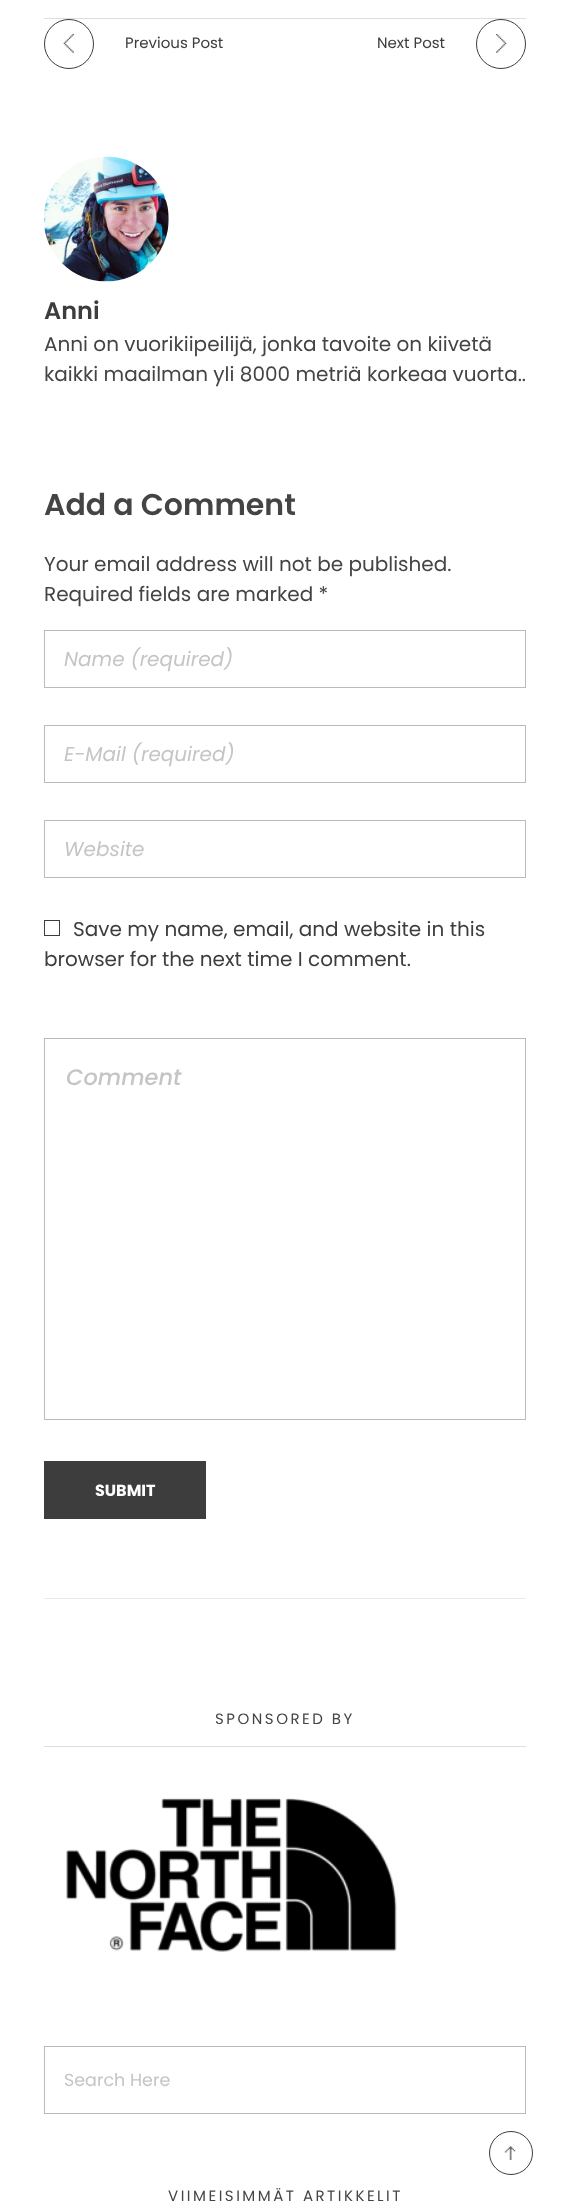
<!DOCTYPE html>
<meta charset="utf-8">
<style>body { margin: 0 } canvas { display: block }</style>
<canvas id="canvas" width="570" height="2212"></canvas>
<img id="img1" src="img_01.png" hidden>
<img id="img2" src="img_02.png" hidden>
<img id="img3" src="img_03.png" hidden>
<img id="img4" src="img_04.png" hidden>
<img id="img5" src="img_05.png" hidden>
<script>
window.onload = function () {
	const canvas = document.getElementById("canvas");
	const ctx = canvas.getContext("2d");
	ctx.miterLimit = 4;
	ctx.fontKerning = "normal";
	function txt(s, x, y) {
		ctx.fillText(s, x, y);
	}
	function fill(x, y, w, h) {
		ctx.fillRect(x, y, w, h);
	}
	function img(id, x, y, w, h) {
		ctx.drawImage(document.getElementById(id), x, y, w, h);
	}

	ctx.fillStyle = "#FFFFFF";
	fill(0, 0, 570, 2212);
	ctx.fillStyle = "#DEDEDE";
	fill(44, 18, 482, 1);
	ctx.beginPath();
	ctx.arc(69, 44, 24.5, 0, Math.PI * 2);
	ctx.strokeStyle = "#3D3D3D";
	ctx.stroke();
	img("img1", 63, 34, 11, 19);
	ctx.beginPath();
	ctx.arc(501, 44, 24.5, 0, Math.PI * 2);
	ctx.stroke();
	img("img2", 496, 34, 11, 19);
	img("img3", 43, 156, 126, 126);
	ctx.strokeStyle = "#BBBBBB";
	ctx.strokeRect(44.5, 630.5, 481, 57);
	ctx.strokeRect(44.5, 725.5, 481, 57);
	ctx.strokeRect(44.5, 820.5, 481, 57);
	ctx.strokeStyle = "#3D3D3D";
	ctx.strokeRect(44.5, 920.5, 15, 15);
	ctx.strokeStyle = "#BBBBBB";
	ctx.strokeRect(44.5, 1038.5, 481, 381);
	ctx.fillStyle = "#3D3D3D";
	fill(44, 1461, 162, 58);
	ctx.fillStyle = "#EAEAEA";
	fill(44, 1598, 482, 1);
	ctx.fillStyle = "#DEDEDE";
	fill(44, 1746, 482, 1);
	img("img4", 66, 1798, 331, 154);
	ctx.strokeRect(44.5, 2046.5, 481, 67);
	ctx.beginPath();
	ctx.arc(511, 2153, 21.5, 0, Math.PI * 2);
	ctx.strokeStyle = "#3D3D3D";
	ctx.stroke();
	img("img5", 504, 2146, 12, 14);
	ctx.font = "15px Poppins";
	ctx.fillStyle = "#3D3D3D";
	txt("Previous Post", 125, 48);
	txt("Next Post", 377, 48);
	ctx.font = "600 24px Poppins";
	txt("Anni", 44, 319);
	ctx.font = "20px Poppins";
	ctx.fillStyle = "#444444";
	txt("Anni on vuorikiipeilijä, jonka tavoite on kiivetä", 44, 351);
	txt("kaikki maailman yli 8000 metriä korkeaa vuorta..", 44, 381);
	ctx.font = "600 30px Poppins";
	txt("Add a Comment", 44, 515);
	ctx.font = "20px Poppins";
	txt("Your email address will not be published.", 44, 571);
	txt("Required fields are marked *", 44, 601);
	ctx.font = "italic 20px Poppins";
	ctx.fillStyle = "#C5C5C5";
	txt("Name (required)", 64, 666);
	txt("E-Mail (required)", 64, 761);
	txt("Website", 64, 856);
	ctx.font = "20px Poppins";
	ctx.fillStyle = "#3D3D3D";
	txt("Save my name, email, and website in this", 73, 936);
	txt("browser for the next time I comment.", 44, 966);
	ctx.font = "italic 500 22.5px Poppins";
	ctx.fillStyle = "#C5C5C5";
	txt("Comment", 66, 1085);
	ctx.font = "bold 16px Poppins";
	ctx.fillStyle = "#FFFFFF";
	txt("SUBMIT", 95, 1496);
	ctx.letterSpacing = "2.5px";
	ctx.font = "15px Poppins";
	ctx.fillStyle = "#444444";
	txt("SPONSORED BY", 215, 1724);
	ctx.letterSpacing = "0px";
	ctx.font = "17.5px Poppins";
	ctx.fillStyle = "#C5C5C5";
	txt("Search Here", 64, 2086);
	ctx.letterSpacing = "2.5px";
	ctx.font = "15px Poppins";
	ctx.fillStyle = "#444444";
	txt("VIIMEISIMMÄT ARTIKKELIT", 168, 2201);
};
</script>
